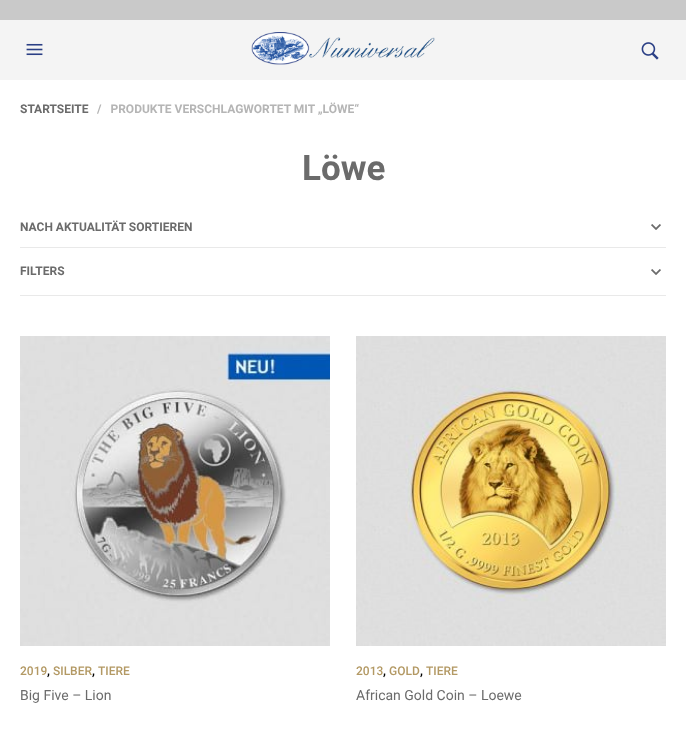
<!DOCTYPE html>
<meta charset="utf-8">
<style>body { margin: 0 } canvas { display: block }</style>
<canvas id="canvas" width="686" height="734"></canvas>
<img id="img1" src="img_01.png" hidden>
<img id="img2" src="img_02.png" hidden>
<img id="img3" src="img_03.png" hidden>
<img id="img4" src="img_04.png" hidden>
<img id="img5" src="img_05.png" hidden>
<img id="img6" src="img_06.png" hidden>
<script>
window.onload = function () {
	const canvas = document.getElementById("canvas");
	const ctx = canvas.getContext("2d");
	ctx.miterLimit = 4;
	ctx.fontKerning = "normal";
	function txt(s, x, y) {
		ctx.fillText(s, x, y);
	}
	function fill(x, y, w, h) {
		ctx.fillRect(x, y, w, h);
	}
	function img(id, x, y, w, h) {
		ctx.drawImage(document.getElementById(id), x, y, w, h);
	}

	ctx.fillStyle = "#FFFFFF";
	fill(0, 0, 686, 734);
	ctx.fillStyle = "#F4F4F4";
	fill(0, 20, 686, 60);
	ctx.fillStyle = "#C9C9C9";
	fill(0, 0, 686, 20);
	img("img1", 26, 43, 17, 13);
	img("img2", 251, 32, 184, 33);
	img("img3", 641, 42, 18, 18);
	ctx.fillStyle = "#E9E9E9";
	fill(20, 247, 646, 1);
	img("img4", 651, 224, 10, 6);
	img("img4", 651, 269, 10, 6);
	fill(20, 295, 646, 1);
	img("img5", 20, 336, 310, 310);
	img("img6", 356, 336, 310, 310);
	ctx.font = "bold 12px Roboto";
	ctx.fillStyle = "#6B6B6B";
	txt("STARTSEITE", 20, 113);
	ctx.fillStyle = "#B5B5B5";
	txt("/   PRODUKTE VERSCHLAGWORTET MIT „LÖWE“", 97, 113);
	ctx.font = "bold 35px Roboto";
	ctx.fillStyle = "#6B6B6B";
	txt("Löwe", 302, 180);
	ctx.font = "bold 12px Roboto";
	txt("NACH AKTUALITÄT SORTIEREN", 20, 231);
	txt("FILTERS", 20, 275);
	ctx.font = "500 12px Roboto";
	ctx.fillStyle = "#B39964";
	txt("2019", 20, 675);
	txt("SILBER", 53, 675);
	txt("TIERE", 98, 675);
	ctx.font = "bold 12px Roboto";
	ctx.fillStyle = "#000000";
	txt(",", 47, 675);
	txt(",", 92, 675);
	ctx.font = "14px Roboto";
	ctx.fillStyle = "#6B6B6B";
	txt("Big Five – Lion", 20, 700);
	ctx.font = "500 12px Roboto";
	ctx.fillStyle = "#B39964";
	txt("2013", 356, 675);
	txt("GOLD", 389, 675);
	txt("TIERE", 426, 675);
	ctx.font = "bold 12px Roboto";
	ctx.fillStyle = "#000000";
	txt(",", 383, 675);
	txt(",", 420, 675);
	ctx.font = "14px Roboto";
	ctx.fillStyle = "#6B6B6B";
	txt("African Gold Coin – Loewe", 356, 700);
};
</script>
